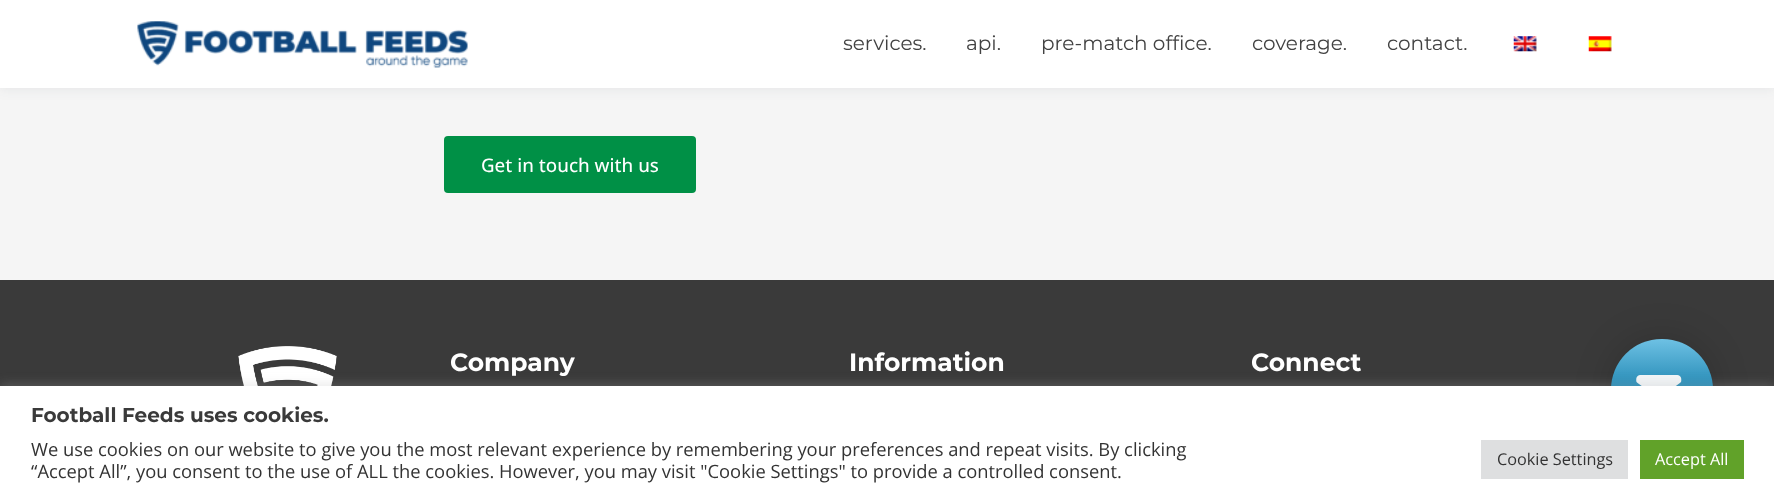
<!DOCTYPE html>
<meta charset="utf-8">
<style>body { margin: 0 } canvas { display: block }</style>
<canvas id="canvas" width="1774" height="502"></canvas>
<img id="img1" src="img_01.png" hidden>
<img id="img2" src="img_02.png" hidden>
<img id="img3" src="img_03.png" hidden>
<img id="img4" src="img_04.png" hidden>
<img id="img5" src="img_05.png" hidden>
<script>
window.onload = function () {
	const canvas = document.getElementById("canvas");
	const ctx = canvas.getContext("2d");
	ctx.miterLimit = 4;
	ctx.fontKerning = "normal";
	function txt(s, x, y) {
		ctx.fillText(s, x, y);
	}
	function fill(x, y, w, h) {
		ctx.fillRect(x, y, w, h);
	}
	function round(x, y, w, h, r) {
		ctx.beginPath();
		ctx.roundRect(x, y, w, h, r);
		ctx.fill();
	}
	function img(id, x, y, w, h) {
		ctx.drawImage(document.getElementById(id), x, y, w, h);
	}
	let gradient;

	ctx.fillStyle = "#F5F5F5";
	fill(0, 0, 1774, 502);
	ctx.fillStyle = "rgba(36, 50, 66, 0.07)";
	ctx.filter = "blur(6px)";
	ctx.beginPath();
	ctx.rect(0, 3, 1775, 87);
	ctx.fill();
	ctx.filter = "none";
	ctx.fillStyle = "#FFFFFF";
	fill(0, 0, 1774, 88);
	img("img1", 137, 21, 331, 47);
	img("img2", 1513, 36, 24, 16);
	img("img3", 1588, 36, 24, 16);
	ctx.fillStyle = "#009046";
	round(444, 136, 252, 57, 4);
	ctx.fillStyle = "#3A3A3A";
	fill(0, 280, 1774, 106);
	ctx.fillStyle = "rgba(0, 0, 0, 0.2)";
	ctx.filter = "blur(19px)";
	ctx.beginPath();
	ctx.roundRect(1614, 341, 96, 97, 48);
	ctx.fill();
	ctx.filter = "none";
	gradient = ctx.createLinearGradient(1662, 339, 1662, 440);
	gradient.addColorStop(0, "#6EC1E4");
	gradient.addColorStop(0.72, "#006F9E");
	ctx.fillStyle = gradient;
	round(1611, 339, 102, 101, 50.5);
	img("img4", 1636, 375, 46, 11);
	img("img5", 238, 346, 99, 40);
	ctx.fillStyle = "rgba(172, 171, 171, 0.3)";
	ctx.filter = "blur(6px)";
	ctx.beginPath();
	ctx.rect(0, 385, 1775, 116);
	ctx.fill();
	ctx.filter = "none";
	ctx.fillStyle = "#FFFFFF";
	fill(0, 386, 1774, 116);
	ctx.fillStyle = "#DEDFE0";
	fill(1481, 440, 147, 39);
	ctx.fillStyle = "#61A229";
	fill(1640, 440, 104, 39);
	ctx.font = "20px Montserrat";
	ctx.fillStyle = "#424242";
	txt("services.", 843, 50);
	txt("api.", 966, 50);
	txt("pre-match office.", 1041, 50);
	txt("coverage.", 1252, 50);
	txt("contact.", 1387, 50);
	ctx.font = "500 18.75px Open Sans";
	ctx.fillStyle = "#FFFFFF";
	txt("Get in touch with us", 481, 172);
	ctx.font = "bold 25px Montserrat";
	txt("Company", 450, 371);
	txt("Information", 849, 371);
	txt("Connect", 1251, 371);
	ctx.font = "bold 20px Montserrat";
	ctx.fillStyle = "#3A3A3A";
	txt("Football Feeds uses cookies.", 31, 422);
	ctx.font = "18.33px Open Sans";
	ctx.fillStyle = "#333333";
	txt("We use cookies on our website to give you the most relevant experience by remembering your preferences and repeat visits. By clicking", 31, 456);
	txt("“Accept All”, you consent to the use of ALL the cookies. However, you may visit \"Cookie Settings\" to provide a controlled consent.", 31, 478);
	ctx.font = "16.25px Open Sans";
	txt("Cookie Settings", 1497, 465);
	ctx.fillStyle = "#FFFFFF";
	txt("Accept All", 1655, 465);
};
</script>
